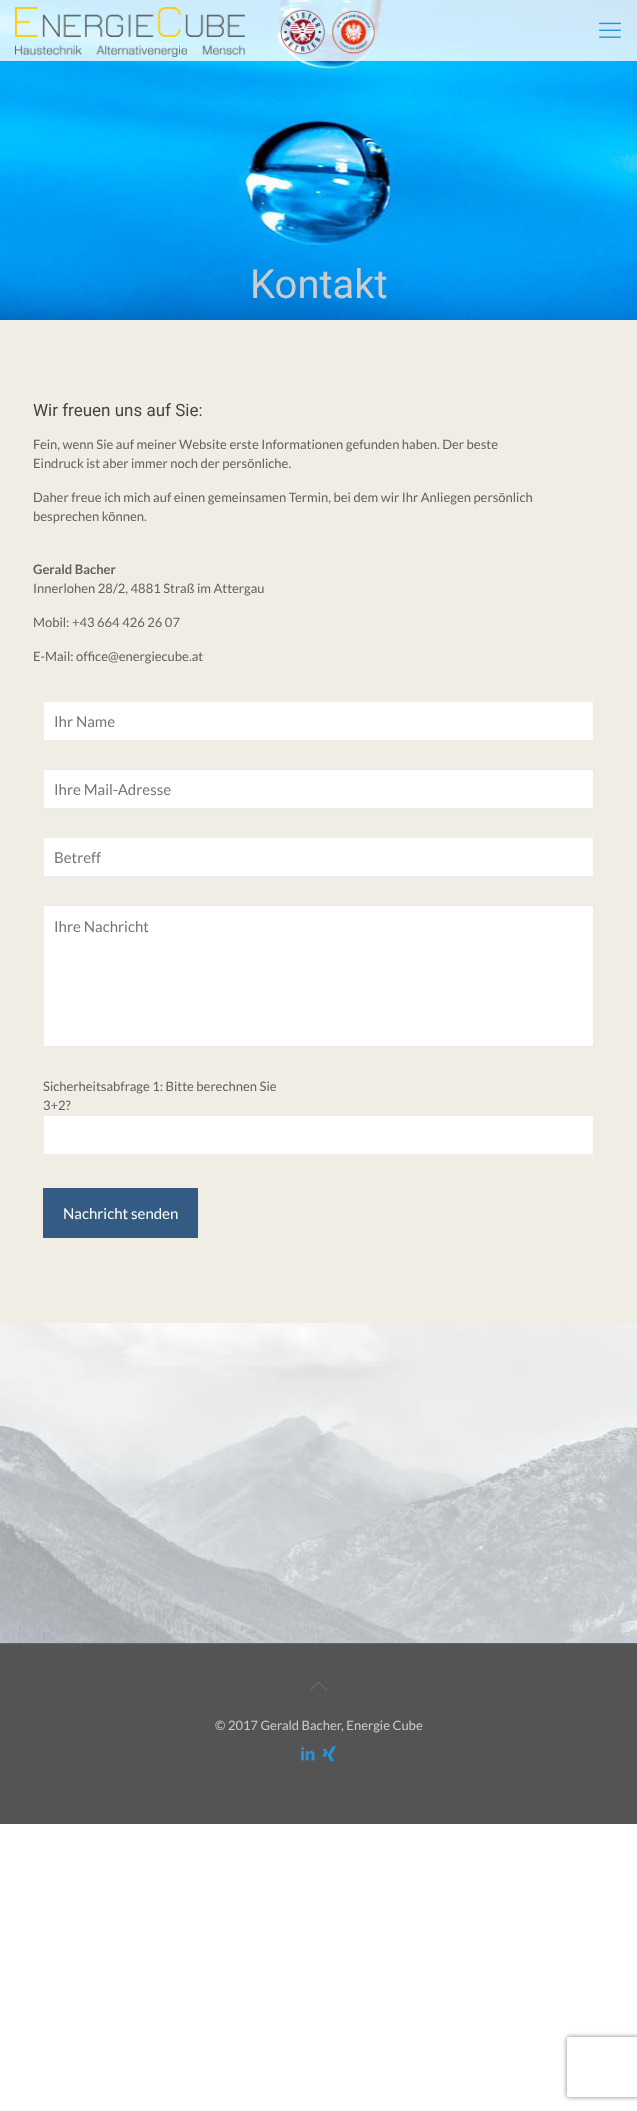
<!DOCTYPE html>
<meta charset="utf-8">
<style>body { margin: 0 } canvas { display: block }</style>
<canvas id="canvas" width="637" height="2111"></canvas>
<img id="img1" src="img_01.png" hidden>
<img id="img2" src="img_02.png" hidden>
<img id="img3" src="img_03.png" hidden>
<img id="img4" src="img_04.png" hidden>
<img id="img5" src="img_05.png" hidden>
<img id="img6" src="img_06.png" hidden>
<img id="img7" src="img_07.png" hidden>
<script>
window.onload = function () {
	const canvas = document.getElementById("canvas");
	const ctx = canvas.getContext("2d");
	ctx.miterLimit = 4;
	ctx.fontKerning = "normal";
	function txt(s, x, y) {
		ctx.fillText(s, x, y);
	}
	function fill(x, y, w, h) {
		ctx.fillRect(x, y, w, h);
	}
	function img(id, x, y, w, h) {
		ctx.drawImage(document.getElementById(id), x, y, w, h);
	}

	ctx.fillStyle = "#FFFFFF";
	fill(0, 0, 637, 2111);
	img("img1", 0, 0, 637, 320);
	ctx.fillStyle = "rgba(255, 255, 255, 0.8)";
	fill(0, 0, 637, 61);
	img("img2", 15, 7, 361, 50);
	img("img3", 599, 22, 22, 16);
	ctx.fillStyle = "#F0EEE4";
	fill(0, 320, 637, 1003);
	ctx.fillStyle = "#FFFFFF";
	ctx.beginPath();
	ctx.rect(43.5, 701.5, 550, 39);
	ctx.fill();
	ctx.strokeStyle = "#EBEBEB";
	ctx.stroke();
	ctx.beginPath();
	ctx.rect(43.5, 769.5, 550, 39);
	ctx.fill();
	ctx.stroke();
	ctx.beginPath();
	ctx.rect(43.5, 837.5, 550, 39);
	ctx.fill();
	ctx.stroke();
	ctx.beginPath();
	ctx.rect(43.5, 905.5, 550, 141);
	ctx.fill();
	ctx.stroke();
	ctx.beginPath();
	ctx.rect(43.5, 1115.5, 550, 39);
	ctx.fill();
	ctx.stroke();
	ctx.fillStyle = "#345B84";
	fill(43, 1188, 155, 50);
	img("img4", 0, 1323, 637, 320);
	ctx.fillStyle = "#545454";
	fill(0, 1644, 637, 180);
	ctx.fillStyle = "#656565";
	fill(0, 1643, 637, 1);
	img("img5", 310, 1681, 17, 10);
	img("img6", 301, 1747, 14, 14);
	img("img7", 322, 1746, 14, 16);
	ctx.save();
	ctx.beginPath();
	ctx.moveTo(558, 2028);
	ctx.lineTo(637, 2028);
	ctx.lineTo(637, 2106);
	ctx.lineTo(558, 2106);
	ctx.closePath();
	ctx.moveTo(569, 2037);
	ctx.lineTo(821, 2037);
	ctx.bezierCurveTo(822, 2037, 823, 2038, 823, 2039);
	ctx.lineTo(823, 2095);
	ctx.bezierCurveTo(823, 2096, 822, 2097, 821, 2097);
	ctx.lineTo(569, 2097);
	ctx.bezierCurveTo(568, 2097, 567, 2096, 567, 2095);
	ctx.lineTo(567, 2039);
	ctx.bezierCurveTo(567, 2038, 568, 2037, 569, 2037);
	ctx.closePath();
	ctx.clip("evenodd");
	ctx.fillStyle = "#808080";
	ctx.filter = "blur(2.5px)";
	ctx.beginPath();
	ctx.roundRect(567, 2037, 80, 60, 2);
	ctx.fill();
	ctx.filter = "none";
	ctx.restore();
	ctx.font = "40px Roboto";
	ctx.fillStyle = "#CCCCCC";
	txt("Kontakt", 250, 298);
	ctx.font = "17px Roboto";
	ctx.fillStyle = "#444444";
	txt("Wir freuen uns auf Sie:", 33, 416);
	ctx.font = "13px Lato";
	ctx.fillStyle = "#626262";
	txt("Fein, wenn Sie auf meiner Website erste Informationen gefunden haben. Der beste", 33, 449);
	txt("Eindruck ist aber immer noch der persönliche.", 33, 468);
	txt("Daher freue ich mich auf einen gemeinsamen Termin, bei dem wir Ihr Anliegen persönlich", 33, 502);
	txt("besprechen können.", 33, 521);
	ctx.font = "bold 13px Lato";
	txt("Gerald Bacher", 33, 574);
	ctx.font = "13px Lato";
	txt("Innerlohen 28/2, 4881 Straß im Attergau", 33, 593);
	txt("Mobil: +43 664 426 26 07", 33, 627);
	txt("E-Mail: office@energiecube.at", 33, 661);
	ctx.font = "15px Lato";
	ctx.fillStyle = "#757575";
	txt("Ihr Name", 54, 727);
	txt("Ihre Mail-Adresse", 54, 795);
	txt("Betreff", 54, 863);
	txt("Ihre Nachricht", 54, 932);
	ctx.font = "13px Lato";
	ctx.fillStyle = "#626262";
	txt("Sicherheitsabfrage 1: Bitte berechnen Sie", 43, 1091);
	txt("3+2?", 43, 1110);
	ctx.font = "15px Lato";
	ctx.fillStyle = "#FFFFFF";
	txt("Nachricht senden", 63, 1219);
	ctx.font = "13px Lato";
	ctx.fillStyle = "#CCCCCC";
	txt("© 2017 Gerald Bacher, Energie Cube", 215, 1730);
};
</script>
